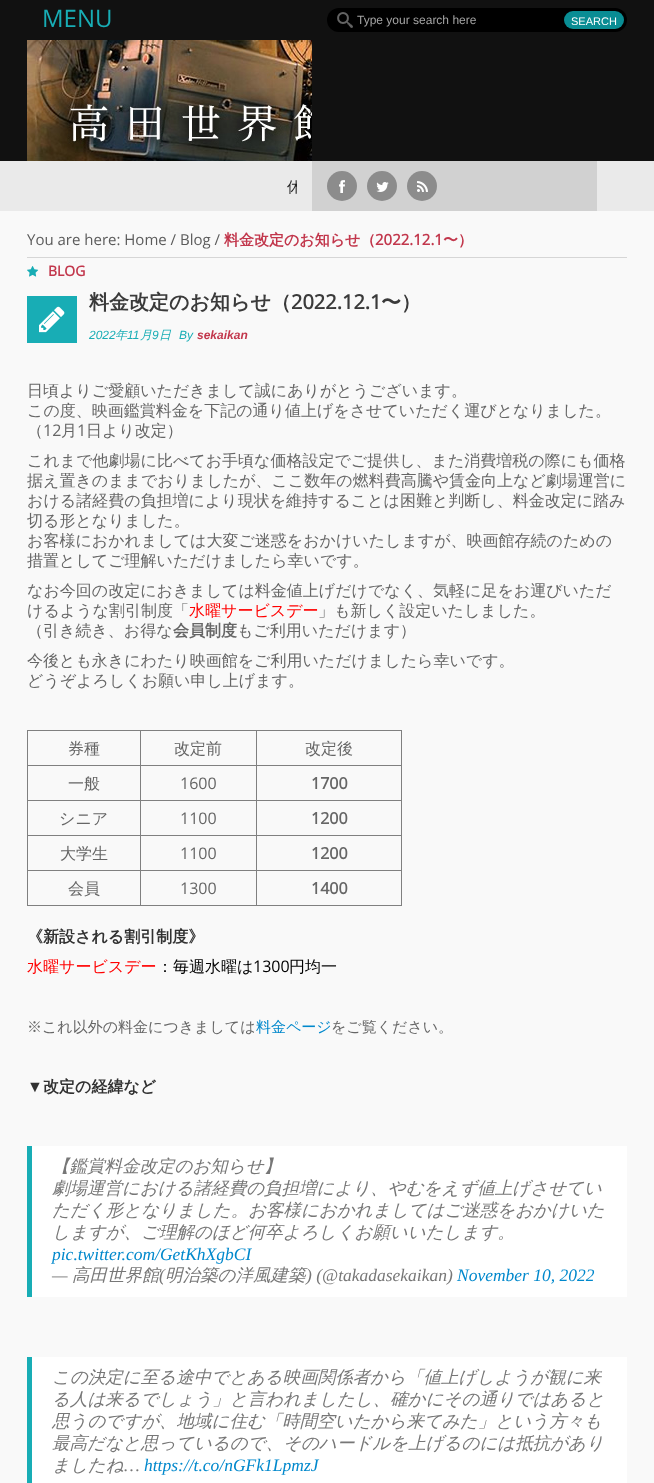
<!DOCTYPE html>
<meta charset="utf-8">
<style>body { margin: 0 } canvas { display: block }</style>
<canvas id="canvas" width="654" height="1483"></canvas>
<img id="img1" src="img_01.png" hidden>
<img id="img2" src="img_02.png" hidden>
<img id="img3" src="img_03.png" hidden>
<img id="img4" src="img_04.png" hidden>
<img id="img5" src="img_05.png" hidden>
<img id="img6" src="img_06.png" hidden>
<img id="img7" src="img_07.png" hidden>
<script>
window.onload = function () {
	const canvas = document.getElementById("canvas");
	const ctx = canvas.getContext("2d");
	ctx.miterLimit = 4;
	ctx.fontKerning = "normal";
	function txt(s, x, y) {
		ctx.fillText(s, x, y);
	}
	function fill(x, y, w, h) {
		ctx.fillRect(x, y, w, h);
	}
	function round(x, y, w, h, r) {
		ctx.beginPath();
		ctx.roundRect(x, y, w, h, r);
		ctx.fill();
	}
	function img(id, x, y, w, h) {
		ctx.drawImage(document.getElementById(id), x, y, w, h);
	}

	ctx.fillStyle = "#F9F9F9";
	fill(0, 0, 654, 1483);
	ctx.fillStyle = "#111111";
	fill(0, 0, 654, 161);
	ctx.fillStyle = "#000000";
	round(327, 8, 300, 24, 12);
	img("img1", 337, 12, 16, 16);
	ctx.fillStyle = "#098D94";
	round(564, 11, 60, 18, 9);
	img("img2", 27, 40, 285, 121);
	ctx.fillStyle = "#EAEAEA";
	fill(0, 161, 654, 50);
	ctx.fillStyle = "#D1D1D1";
	fill(312, 161, 285, 50);
	ctx.fillStyle = "#8C8C8C";
	ctx.beginPath();
	ctx.arc(342, 186, 15, 0, Math.PI * 2);
	ctx.fill();
	img("img3", 339, 180, 6, 13);
	ctx.beginPath();
	ctx.arc(382, 186, 15, 0, Math.PI * 2);
	ctx.fill();
	img("img4", 376, 182, 13, 10);
	ctx.beginPath();
	ctx.arc(422, 186, 15, 0, Math.PI * 2);
	ctx.fill();
	img("img5", 417, 181, 11, 11);
	ctx.fillStyle = "#D6D6D6";
	fill(27, 257, 600, 1);
	img("img6", 27, 266, 12, 11);
	ctx.fillStyle = "#18ADB5";
	fill(27, 296, 50, 47);
	img("img7", 39, 306, 26, 27);
	ctx.fillStyle = "#808080";
	fill(27, 730, 375, 1);
	fill(401, 730, 1, 176);
	fill(27, 905, 375, 1);
	fill(27, 730, 1, 176);
	fill(256, 765, 146, 1);
	fill(256, 800, 146, 1);
	fill(256, 835, 146, 1);
	fill(256, 870, 146, 1);
	fill(256, 870, 1, 36);
	fill(140, 870, 117, 1);
	fill(256, 835, 1, 36);
	fill(140, 835, 117, 1);
	fill(256, 800, 1, 36);
	fill(140, 800, 117, 1);
	fill(256, 765, 1, 36);
	fill(140, 765, 117, 1);
	fill(140, 870, 1, 36);
	fill(27, 870, 114, 1);
	fill(140, 835, 1, 36);
	fill(27, 835, 114, 1);
	fill(140, 800, 1, 36);
	fill(27, 800, 114, 1);
	fill(140, 765, 1, 36);
	fill(27, 765, 114, 1);
	fill(140, 730, 1, 36);
	fill(256, 730, 1, 36);
	ctx.fillStyle = "#FFFFFF";
	fill(32, 1146, 595, 151);
	ctx.fillStyle = "#18ADB5";
	fill(27, 1146, 5, 151);
	ctx.fillStyle = "#FFFFFF";
	fill(32, 1357, 595, 126);
	ctx.fillStyle = "#18ADB5";
	fill(27, 1357, 5, 126);
	ctx.font = "24px Open Sans";
	txt("MENU", 42, 27);
	ctx.font = "12px Liberation Sans";
	ctx.fillStyle = "#A3A3A3";
	txt("Type your search here", 357, 24);
	ctx.font = "11px Liberation Sans";
	ctx.fillStyle = "#FFFFFF";
	txt("SEARCH", 571, 25);
	ctx.save();
	ctx.beginPath();
	ctx.rect(27, 161, 270, 40);
	ctx.clip();
	ctx.font = "500 15px WenQuanYi Zen Hei";
	ctx.fillStyle = "#222222";
	txt("休", 287, 192);
	ctx.restore();
	ctx.font = "15px Open Sans";
	ctx.fillStyle = "#5B5B5B";
	txt("You are here: Home / Blog /", 27, 245);
	ctx.font = "bold 15px WenQuanYi Zen Hei";
	ctx.fillStyle = "#C2374C";
	txt("料金改定のお知らせ（", 224, 245);
	ctx.font = "bold 15px Open Sans";
	txt("2022.12.1", 375, 245);
	ctx.font = "bold 15px WenQuanYi Zen Hei";
	txt("〜）", 443, 245);
	ctx.font = "bold 14px Open Sans";
	txt("BLOG", 48, 276);
	ctx.font = "bold 20px WenQuanYi Zen Hei";
	ctx.fillStyle = "#3A3A3A";
	txt("料金改定のお知らせ（", 89, 309);
	ctx.font = "bold 20px Open Sans";
	txt("2022.12.1", 291, 309);
	ctx.font = "bold 20px WenQuanYi Zen Hei";
	txt("〜）", 381, 309);
	ctx.font = "italic 12px Liberation Sans";
	ctx.fillStyle = "#18ADB5";
	txt("2022", 89, 339);
	ctx.font = "italic 500 12px WenQuanYi Zen Hei";
	txt("年", 115, 339);
	ctx.font = "italic 12px Liberation Sans";
	txt("11", 127, 339);
	ctx.font = "italic 500 12px WenQuanYi Zen Hei";
	txt("月", 140, 339);
	ctx.font = "italic 12px Liberation Sans";
	txt("9", 152, 339);
	ctx.font = "italic 500 12px WenQuanYi Zen Hei";
	txt("日", 159, 339);
	ctx.font = "italic 12px Liberation Sans";
	txt("By", 179, 339);
	ctx.font = "italic bold 12px Liberation Sans";
	ctx.fillStyle = "#C2374C";
	txt("sekaikan", 197, 339);
	ctx.font = "500 16px WenQuanYi Zen Hei";
	ctx.fillStyle = "#666666";
	txt("日頃よりご愛顧いただきまして誠にありがとうございます。", 27, 396);
	txt("この度、映画鑑賞料金を下記の通り値上げをさせていただく運びとなりました。", 27, 416);
	txt("（", 27, 436);
	ctx.font = "16px Open Sans";
	txt("12", 43, 436);
	ctx.font = "500 16px WenQuanYi Zen Hei";
	txt("月", 61, 436);
	ctx.font = "16px Open Sans";
	txt("1", 77, 436);
	ctx.font = "500 16px WenQuanYi Zen Hei";
	txt("日より改定）", 86, 436);
	txt("これまで他劇場に比べてお手頃な価格設定でご提供し、また消費増税の際にも価格", 27, 466);
	txt("据え置きのままでおりましたが、ここ数年の燃料費高騰や賃金向上など劇場運営に", 27, 486);
	txt("おける諸経費の負担増により現状を維持することは困難と判断し、料金改定に踏み", 27, 506);
	txt("切る形となりました。", 27, 526);
	txt("お客様におかれましては大変ご迷惑をおかけいたしますが、映画館存続のための", 27, 546);
	txt("措置としてご理解いただけましたら幸いです。", 27, 566);
	txt("なお今回の改定におきましては料金値上げだけでなく、気軽に足をお運びいただ", 27, 596);
	txt("けるような割引制度「", 27, 616);
	ctx.fillStyle = "#FF0000";
	txt("水曜サービスデー", 189, 616);
	ctx.fillStyle = "#666666";
	txt("」も新しく設定いたしました。", 318, 616);
	txt("（引き続き、お得な", 27, 636);
	ctx.font = "bold 16px WenQuanYi Zen Hei";
	txt("会員制度", 173, 636);
	ctx.font = "500 16px WenQuanYi Zen Hei";
	txt("もご利用いただけます）", 237, 636);
	txt("今後とも永きにわたり映画館をご利用いただけましたら幸いです。", 27, 666);
	txt("どうぞよろしくお願い申し上げます。", 27, 686);
	txt("券種", 68, 754);
	txt("改定前", 174, 754);
	txt("改定後", 305, 754);
	txt("一般", 68, 789);
	ctx.font = "16px Open Sans";
	txt("1600", 180, 789);
	ctx.font = "bold 16px Open Sans";
	txt("1700", 311, 789);
	ctx.font = "500 16px WenQuanYi Zen Hei";
	txt("シニア", 59, 824);
	ctx.font = "16px Open Sans";
	txt("1100", 180, 824);
	ctx.font = "bold 16px Open Sans";
	txt("1200", 311, 824);
	ctx.font = "500 16px WenQuanYi Zen Hei";
	txt("大学生", 60, 859);
	ctx.font = "16px Open Sans";
	txt("1100", 180, 859);
	ctx.font = "bold 16px Open Sans";
	txt("1200", 311, 859);
	ctx.font = "500 16px WenQuanYi Zen Hei";
	txt("会員", 68, 894);
	ctx.font = "16px Open Sans";
	txt("1300", 180, 894);
	ctx.font = "bold 16px Open Sans";
	txt("1400", 311, 894);
	ctx.font = "bold 16px WenQuanYi Zen Hei";
	ctx.fillStyle = "#313131";
	txt("《新設される割引制度》", 27, 942);
	ctx.font = "500 16px WenQuanYi Zen Hei";
	ctx.fillStyle = "#FF0000";
	txt("水曜サービスデー", 27, 972);
	ctx.fillStyle = "#000000";
	txt("：毎週水曜は", 157, 972);
	ctx.font = "16px Open Sans";
	txt("1300", 253, 972);
	ctx.font = "500 16px WenQuanYi Zen Hei";
	txt("円均一", 289, 972);
	ctx.font = "500 15px WenQuanYi Zen Hei";
	ctx.fillStyle = "#666666";
	txt("※これ以外の料金につきましては", 27, 1032);
	ctx.fillStyle = "#0088CC";
	txt("料金ページ", 256, 1032);
	ctx.fillStyle = "#666666";
	txt("をご覧ください。", 331, 1032);
	ctx.font = "bold 16px Liberation Sans";
	ctx.fillStyle = "#313131";
	txt("▼", 27, 1092);
	ctx.font = "bold 16px WenQuanYi Zen Hei";
	txt("改定の経緯など", 43, 1092);
	ctx.font = "italic 500 17.5px WenQuanYi Zen Hei";
	ctx.fillStyle = "#777777";
	txt("【鑑賞料金改定のお知らせ】", 52, 1172);
	txt("劇場運営における諸経費の負担増により、やむをえず値上げさせてい", 52, 1194);
	txt("ただく形となりました。お客様におかれましてはご迷惑をおかけいた", 52, 1216);
	txt("しますが、ご理解のほど何卒よろしくお願いいたします。", 52, 1238);
	ctx.font = "italic 17.5px Liberation Serif";
	ctx.fillStyle = "#0088CC";
	txt("pic.twitter.com/GetKhXgbCI", 52, 1260);
	ctx.fillStyle = "#777777";
	txt("—", 52, 1281);
	ctx.font = "italic 500 17.5px WenQuanYi Zen Hei";
	txt("高田世界館", 72, 1281);
	ctx.font = "italic 17.5px Liberation Serif";
	txt("(", 159, 1281);
	ctx.font = "italic 500 17.5px WenQuanYi Zen Hei";
	txt("明治築の洋風建築", 165, 1281);
	ctx.font = "italic 17.5px Liberation Serif";
	txt(") (@takadasekaikan)", 306, 1281);
	ctx.fillStyle = "#0088CC";
	txt("November 10, 2022", 457, 1281);
	ctx.font = "italic 500 17.5px WenQuanYi Zen Hei";
	ctx.fillStyle = "#777777";
	txt("この決定に至る途中でとある映画関係者から「値上げしようが観に来", 52, 1383);
	txt("る人は来るでしょう」と言われましたし、確かにその通りではあると", 52, 1405);
	txt("思うのですが、地域に住む「時間空いたから来てみた」という方々も", 52, 1427);
	txt("最高だなと思っているので、そのハードルを上げるのには抵抗があり", 52, 1449);
	txt("ましたね", 52, 1471);
	ctx.font = "italic 17.5px Liberation Serif";
	txt("…", 124, 1471);
	ctx.fillStyle = "#0088CC";
	txt("https://t.co/nGFk1LpmzJ", 144, 1471);
};
</script>
